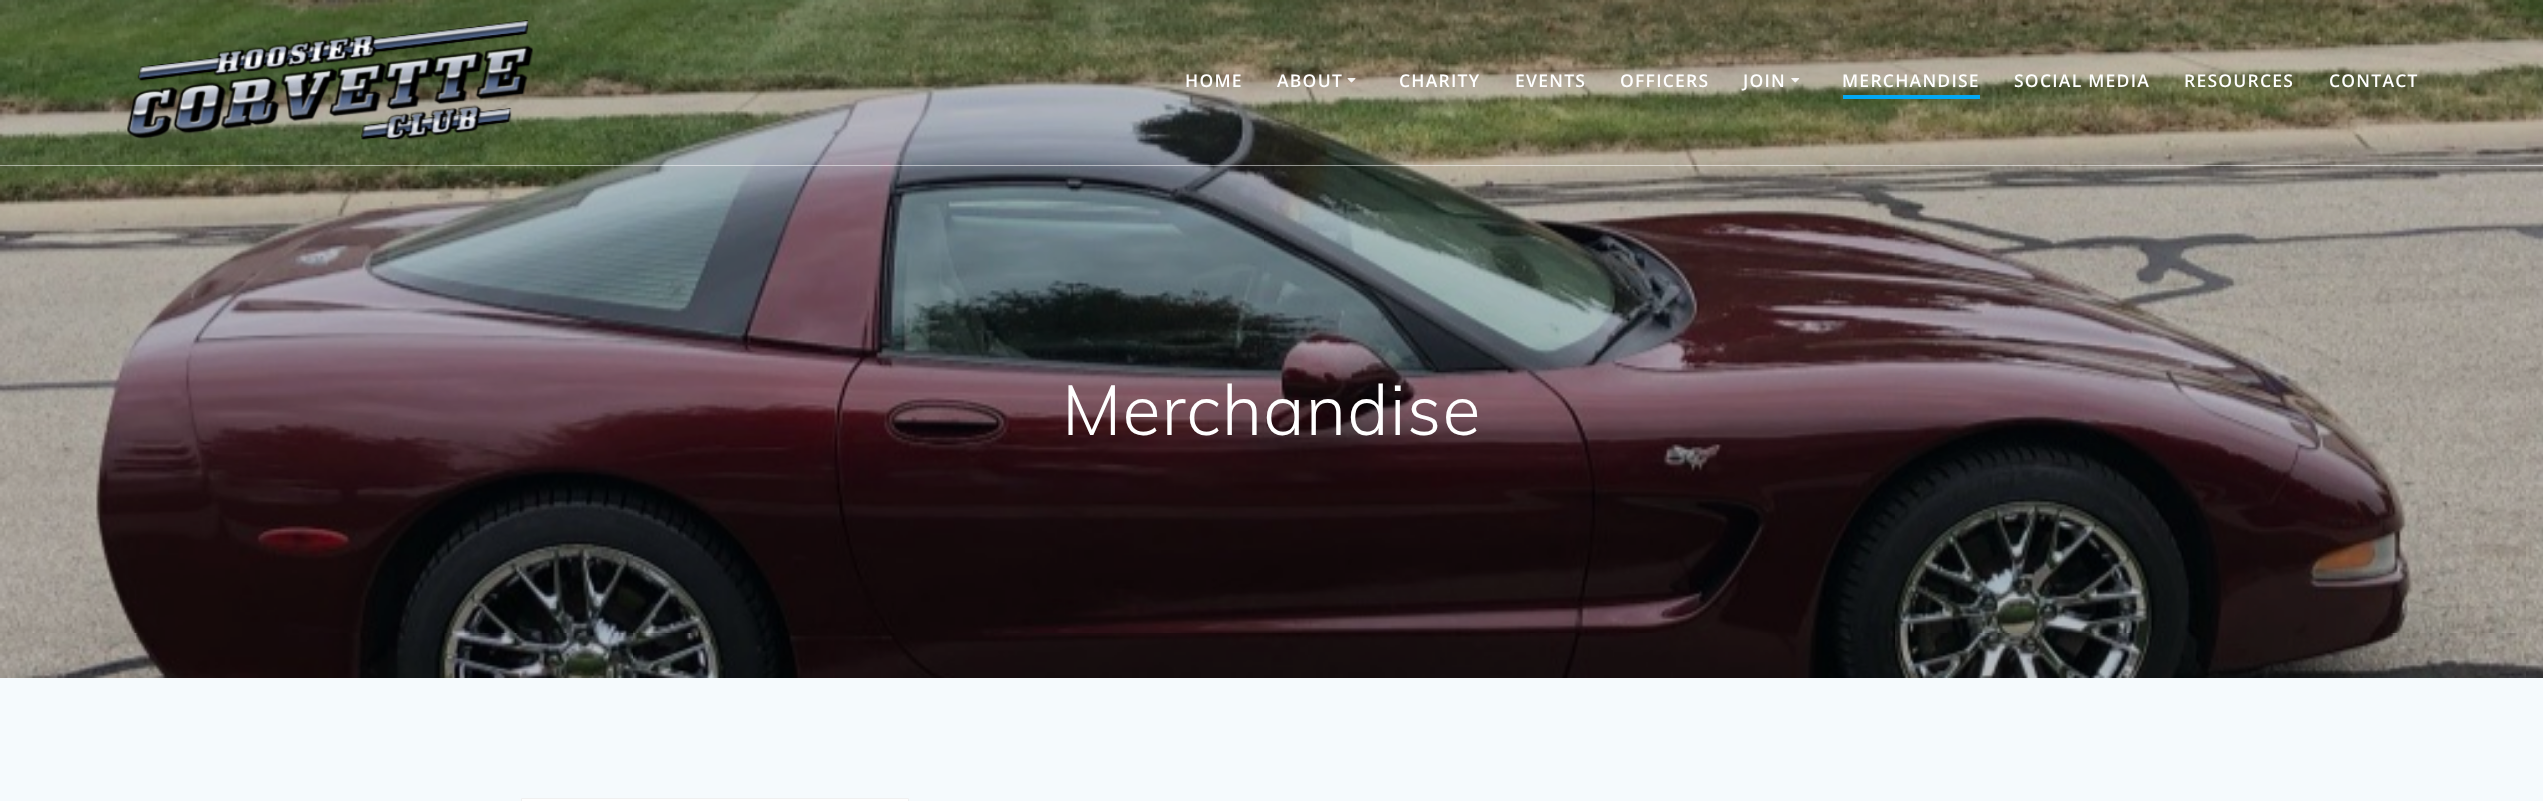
<!DOCTYPE html>
<meta charset="utf-8">
<style>body { margin: 0 } canvas { display: block }</style>
<canvas id="canvas" width="2543" height="801"></canvas>
<img id="img1" src="img_04.png" hidden>
<img id="img2" src="img_01.png" hidden>
<img id="img3" src="img_02.png" hidden>
<img id="img4" src="img_03.png" hidden>
<script>
window.onload = function () {
	const canvas = document.getElementById("canvas");
	const ctx = canvas.getContext("2d");
	ctx.miterLimit = 4;
	ctx.fontKerning = "normal";
	function txt(s, x, y) {
		ctx.fillText(s, x, y);
	}
	function fill(x, y, w, h) {
		ctx.fillRect(x, y, w, h);
	}
	function img(id, x, y, w, h) {
		ctx.drawImage(document.getElementById(id), x, y, w, h);
	}

	ctx.fillStyle = "#FFFFFF";
	fill(0, 0, 2543, 801);
	img("img1", 0, 0, 2543, 678);
	ctx.fillStyle = "rgba(255, 255, 255, 0.5)";
	fill(0, 165, 2543, 1);
	img("img2", 127, 20, 406, 120);
	img("img3", 1347, 78, 9, 5);
	img("img4", 1791, 78, 9, 5);
	ctx.fillStyle = "#03A9F4";
	fill(1843, 95, 137, 4);
	ctx.fillStyle = "#F5FAFD";
	fill(0, 678, 2543, 123);
	ctx.fillStyle = "#FFFFFF";
	ctx.beginPath();
	ctx.rect(521.5, 798.5, 387, 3);
	ctx.fill();
	ctx.strokeStyle = "#F0F0F0";
	ctx.stroke();
	ctx.letterSpacing = "1.25px";
	ctx.font = "600 17.5px Open Sans";
	txt("HOME", 1185, 87);
	txt("ABOUT", 1277, 87);
	txt("CHARITY", 1399, 87);
	txt("EVENTS", 1515, 87);
	txt("OFFICERS", 1620, 87);
	txt("JOIN", 1743, 87);
	txt("MERCHANDISE", 1842, 87);
	txt("SOCIAL MEDIA", 2014, 87);
	txt("RESOURCES", 2184, 87);
	txt("CONTACT", 2329, 87);
	ctx.letterSpacing = "1.1px";
	ctx.font = "300 70px Muli";
	txt("Merchandise", 1062, 435);
};
</script>
